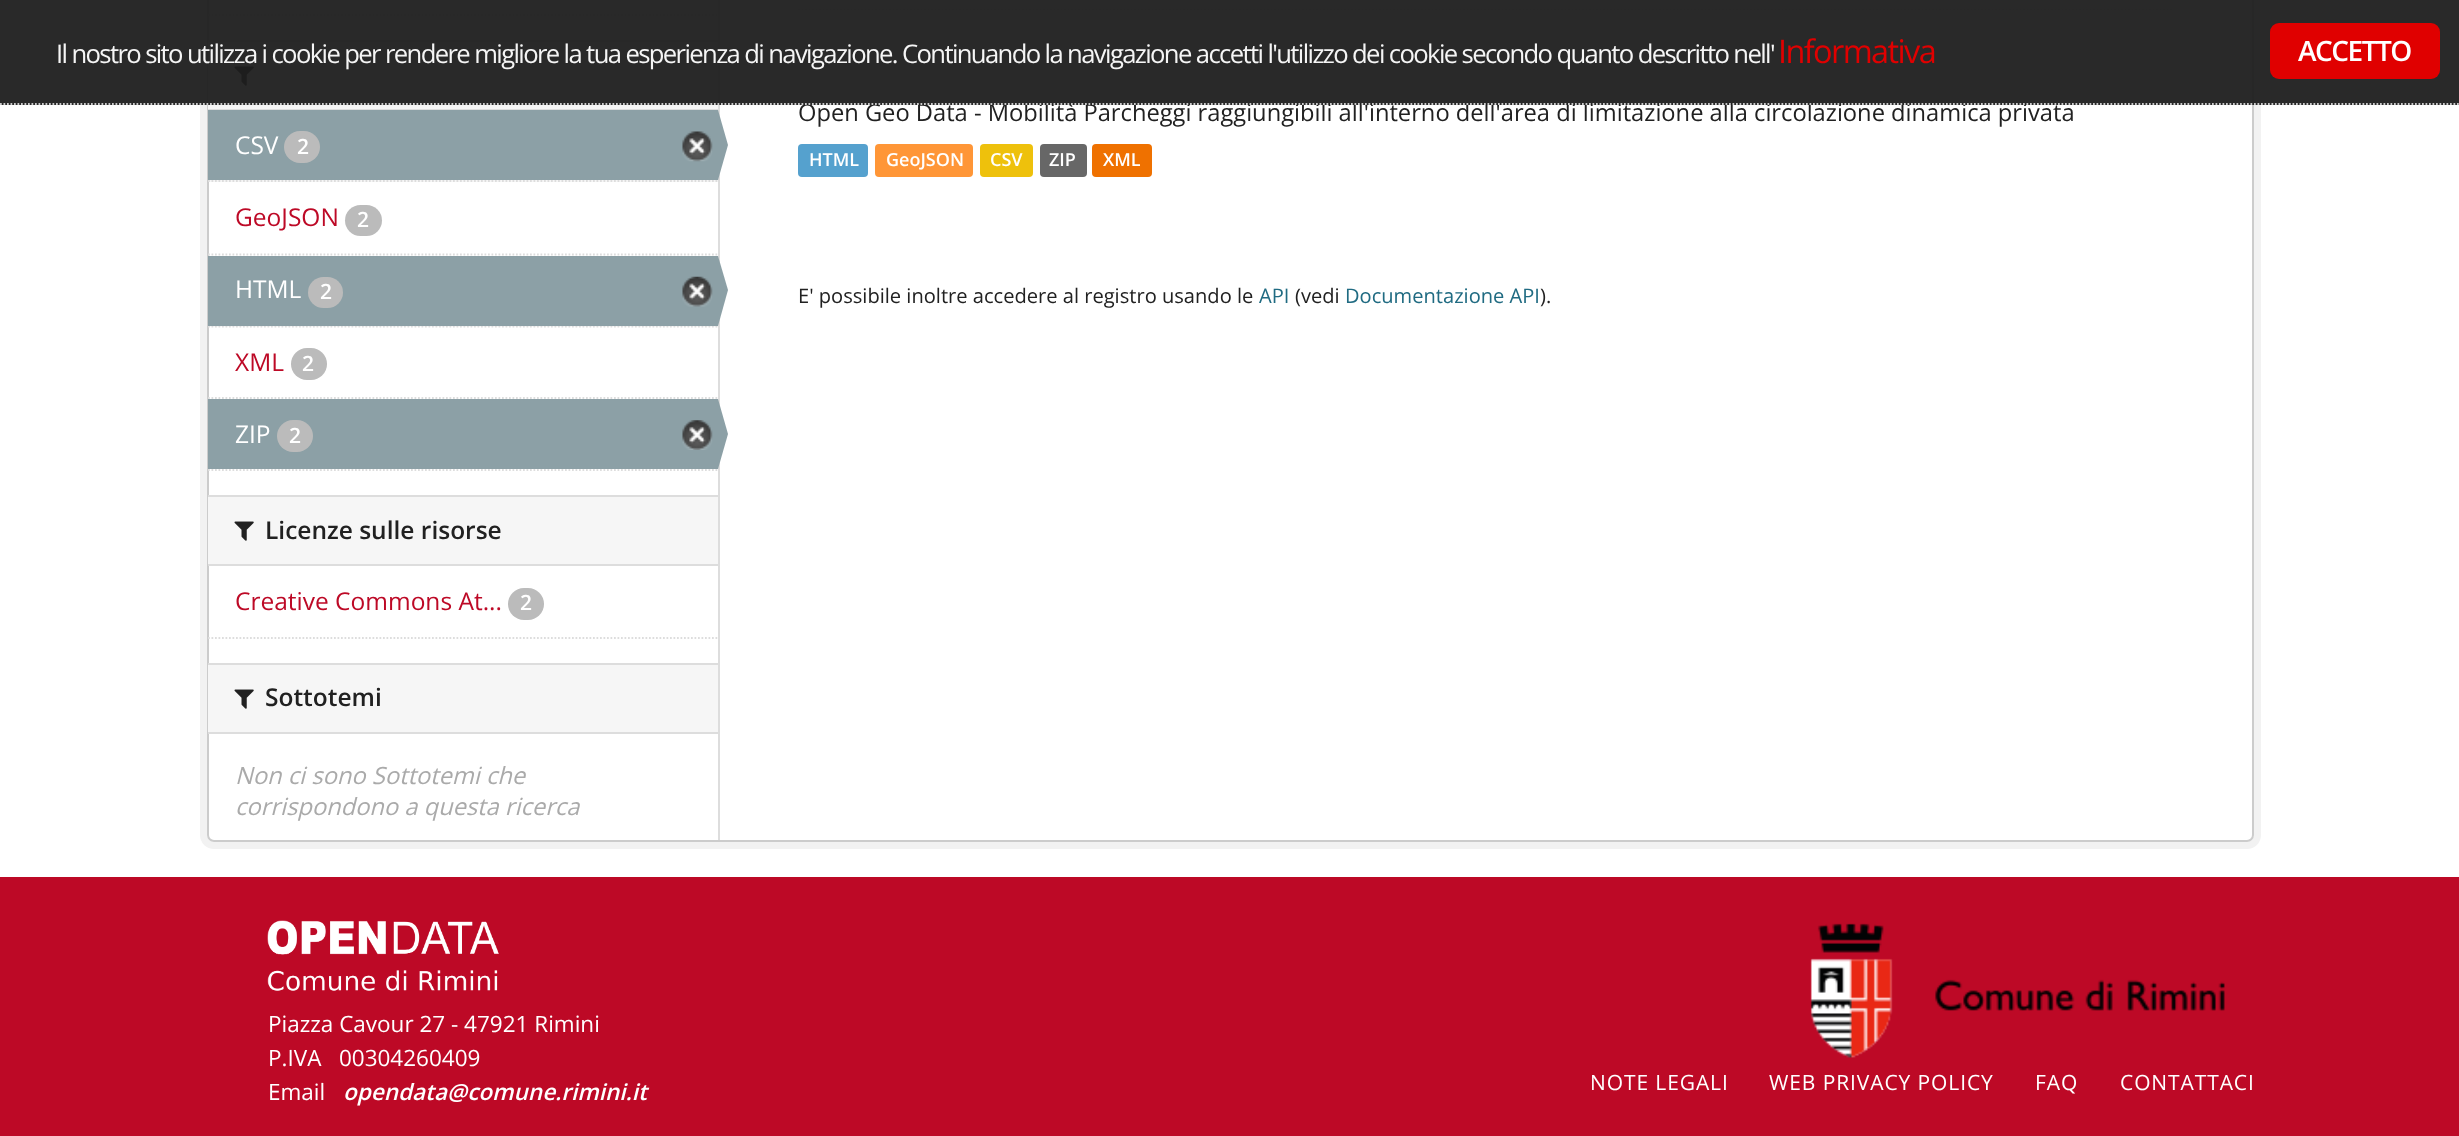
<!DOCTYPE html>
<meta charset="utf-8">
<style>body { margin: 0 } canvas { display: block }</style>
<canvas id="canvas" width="2459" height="1136"></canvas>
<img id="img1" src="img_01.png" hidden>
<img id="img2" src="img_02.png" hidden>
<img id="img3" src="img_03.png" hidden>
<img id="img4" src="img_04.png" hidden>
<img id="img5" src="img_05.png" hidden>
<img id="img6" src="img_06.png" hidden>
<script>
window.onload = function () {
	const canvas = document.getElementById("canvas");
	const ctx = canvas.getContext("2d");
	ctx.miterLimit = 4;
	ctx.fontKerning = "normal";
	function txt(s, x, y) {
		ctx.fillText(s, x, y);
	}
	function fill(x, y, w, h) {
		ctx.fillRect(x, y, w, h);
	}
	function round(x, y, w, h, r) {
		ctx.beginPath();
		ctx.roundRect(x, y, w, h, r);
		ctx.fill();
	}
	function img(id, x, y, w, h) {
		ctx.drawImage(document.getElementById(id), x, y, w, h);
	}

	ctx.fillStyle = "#FFFFFF";
	fill(0, 0, 2459, 1136);
	ctx.beginPath();
	ctx.roundRect(203.5, -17.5, 2054, 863, 10.5);
	ctx.strokeStyle = "#F2F2F2";
	ctx.lineWidth = 7;
	ctx.stroke();
	ctx.beginPath();
	ctx.roundRect(208, -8, 2045, 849, 6);
	ctx.fill();
	ctx.strokeStyle = "#CCCCCC";
	ctx.lineWidth = 2;
	ctx.stroke();
	ctx.beginPath();
	ctx.moveTo(208, 15);
	ctx.lineTo(717.5, 15);
	ctx.strokeStyle = "#DDDDDD";
	ctx.lineWidth = 1.8;
	ctx.setLineDash([1.75, 1.75]);
	ctx.stroke();
	ctx.fillStyle = "#F6F6F6";
	fill(208, 42, 510, 67);
	ctx.fillStyle = "#DDDDDD";
	fill(208, 40, 510, 2);
	fill(208, 109, 510, 1);
	img("img1", 234, 66, 20, 20);
	ctx.fillStyle = "#F6F6F6";
	fill(208, 180, 510, 2);
	ctx.beginPath();
	ctx.moveTo(208, 181);
	ctx.lineTo(717.5, 181);
	ctx.stroke();
	ctx.fillStyle = "#8CA0A6";
	fill(208, 110, 510, 70);
	ctx.fillStyle = "#BBBBBB";
	round(284, 131, 36, 32, 16);
	img("img2", 682, 131, 31, 31);
	ctx.fillStyle = "#DDDDDD";
	fill(718, 0, 2, 840);
	ctx.fillStyle = "#8CA0A6";
	ctx.beginPath();
	ctx.moveTo(718, 180);
	ctx.lineTo(718, 110);
	ctx.lineTo(728, 145);
	ctx.closePath();
	ctx.fill();
	ctx.beginPath();
	ctx.moveTo(208, 254.5);
	ctx.lineTo(717.5, 254.5);
	ctx.stroke();
	ctx.fillStyle = "#BBBBBB";
	round(345, 205, 37, 31, 15.5);
	ctx.fillStyle = "#F6F6F6";
	fill(209, 326, 509, 1);
	ctx.beginPath();
	ctx.moveTo(208, 326.5);
	ctx.lineTo(717.5, 326.5);
	ctx.stroke();
	ctx.fillStyle = "#8CA0A6";
	fill(208, 256, 510, 70);
	ctx.fillStyle = "#BBBBBB";
	round(308, 277, 35, 31, 15.5);
	img("img3", 682, 276, 31, 31);
	ctx.fillStyle = "#8CA0A6";
	ctx.beginPath();
	ctx.moveTo(718, 326);
	ctx.lineTo(718, 256);
	ctx.lineTo(728, 290);
	ctx.closePath();
	ctx.fill();
	ctx.beginPath();
	ctx.moveTo(208, 398);
	ctx.lineTo(717.5, 398);
	ctx.stroke();
	ctx.fillStyle = "#BBBBBB";
	round(291, 348, 36, 32, 16);
	ctx.fillStyle = "#8CA0A6";
	fill(208, 399, 510, 70);
	ctx.fillStyle = "#BBBBBB";
	round(277, 420, 36, 32, 16);
	img("img4", 682, 420, 31, 30);
	ctx.fillStyle = "#8CA0A6";
	ctx.beginPath();
	ctx.moveTo(718, 469);
	ctx.lineTo(718, 399);
	ctx.lineTo(728, 434);
	ctx.closePath();
	ctx.fill();
	ctx.beginPath();
	ctx.moveTo(208, 470);
	ctx.lineTo(717.5, 470);
	ctx.stroke();
	ctx.fillStyle = "#F6F6F6";
	fill(208, 497, 510, 67);
	ctx.fillStyle = "#DDDDDD";
	fill(208, 495, 510, 2);
	fill(208, 564, 510, 2);
	img("img1", 234, 521, 20, 20);
	ctx.fillStyle = "#BBBBBB";
	round(508, 588, 36, 32, 16);
	ctx.beginPath();
	ctx.moveTo(208, 638);
	ctx.lineTo(717.5, 638);
	ctx.stroke();
	ctx.fillStyle = "#F6F6F6";
	fill(208, 665, 510, 67);
	ctx.fillStyle = "#DDDDDD";
	fill(208, 663, 510, 2);
	fill(208, 732, 510, 2);
	img("img1", 234, 689, 20, 20);
	ctx.beginPath();
	ctx.moveTo(798, 9.5);
	ctx.lineTo(2173.5, 9.5);
	ctx.stroke();
	ctx.fillStyle = "#55A1CE";
	round(798, 144, 70, 33, 4);
	ctx.fillStyle = "#FF9637";
	round(875, 144, 98, 33, 4);
	ctx.fillStyle = "#EEC10C";
	round(980, 144, 53, 33, 4);
	ctx.fillStyle = "#676767";
	round(1040, 144, 47, 33, 4);
	ctx.fillStyle = "#EF7100";
	round(1092, 144, 60, 33, 4);
	ctx.fillStyle = "#BD0926";
	fill(0, 877, 2459, 259);
	img("img5", 267, 920, 232, 71);
	img("img6", 1810, 923, 415, 135);
	ctx.font = "24.5px Open Sans";
	ctx.fillStyle = "#FFFFFF";
	txt("CSV", 235, 154);
	ctx.font = "600 21px Open Sans";
	txt("2", 297, 154);
	ctx.font = "24.5px Open Sans";
	ctx.fillStyle = "#BD0926";
	txt("GeoJSON", 235, 226);
	ctx.font = "600 21px Open Sans";
	ctx.fillStyle = "#FFFFFF";
	txt("2", 357, 227);
	ctx.font = "24.5px Open Sans";
	txt("HTML", 235, 298);
	ctx.font = "600 21px Open Sans";
	txt("2", 320, 299);
	ctx.font = "24.5px Open Sans";
	ctx.fillStyle = "#BD0926";
	txt("XML", 235, 371);
	ctx.font = "600 21px Open Sans";
	ctx.fillStyle = "#FFFFFF";
	txt("2", 302, 371);
	ctx.font = "24.5px Open Sans";
	txt("ZIP", 235, 443);
	ctx.font = "600 21px Open Sans";
	txt("2", 289, 443);
	ctx.font = "600 24.5px Open Sans";
	ctx.fillStyle = "#212121";
	txt("Licenze sulle risorse", 265, 539);
	ctx.font = "24.5px Open Sans";
	ctx.fillStyle = "#BD0926";
	txt("Creative Commons At...", 235, 610);
	ctx.font = "600 21px Open Sans";
	ctx.fillStyle = "#FFFFFF";
	txt("2", 520, 610);
	ctx.font = "600 24.5px Open Sans";
	ctx.fillStyle = "#212121";
	txt("Sottotemi", 265, 706);
	ctx.font = "italic 23.7px Open Sans";
	ctx.fillStyle = "#AAAAAA";
	txt("Non ci sono Sottotemi che", 235, 784);
	txt("corrispondono a questa ricerca", 235, 815);
	ctx.font = "23.7px Open Sans";
	ctx.fillStyle = "#212121";
	txt("Open Geo Data - Mobilità Parcheggi raggiungibili all'interno dell'area di limitazione alla circolazione dinamica privata", 798, 121);
	ctx.fillStyle = "rgba(29, 29, 29, 0.95)";
	fill(0, 0, 2459, 105);
	ctx.fillStyle = "#E00000";
	round(2270, 23, 170, 56, 9);
	ctx.letterSpacing = "-1.5px";
	ctx.font = "600 28px Open Sans";
	ctx.fillStyle = "#FFFFFF";
	txt("ACCETTO", 2298, 61);
	ctx.letterSpacing = "-1.63px";
	ctx.font = "32.5px Open Sans";
	ctx.fillStyle = "#E00000";
	txt("Informativa", 1778, 63);
	ctx.font = "25.67px Open Sans";
	ctx.fillStyle = "#F5F5F5";
	txt("Il nostro sito utilizza i cookie per rendere migliore la tua esperienza di navigazione. Continuando la navigazione accetti l'utilizzo dei cookie secondo quanto descritto nell'", 56, 63);
	ctx.beginPath();
	ctx.moveTo(0, 104);
	ctx.lineTo(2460.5, 104);
	ctx.strokeStyle = "#CCCCCC";
	ctx.stroke();
	ctx.letterSpacing = "0px";
	ctx.font = "600 18px Open Sans";
	ctx.fillStyle = "#FFFFFF";
	txt("HTML", 809, 166);
	txt("GeoJSON", 886, 166);
	txt("CSV", 990, 166);
	txt("ZIP", 1049, 166);
	txt("XML", 1103, 166);
	ctx.font = "20.1px Open Sans";
	ctx.fillStyle = "#212121";
	txt("E' possibile inoltre accedere al registro usando le", 798, 303);
	ctx.fillStyle = "#206B82";
	txt("API", 1259, 303);
	ctx.fillStyle = "#212121";
	txt("(vedi", 1295, 303);
	ctx.fillStyle = "#206B82";
	txt("Documentazione API", 1345, 303);
	ctx.fillStyle = "#212121";
	txt(").", 1540, 303);
	ctx.font = "22.5px Open Sans";
	ctx.fillStyle = "#FFFFFF";
	txt("Piazza Cavour 27 - 47921 Rimini", 268, 1032);
	txt("P.IVA   00304260409", 268, 1066);
	txt("Email", 268, 1100);
	ctx.font = "italic 600 22.5px Open Sans";
	txt("opendata@comune.rimini.it", 343, 1100);
	ctx.letterSpacing = "0.9px";
	ctx.font = "21px Open Sans";
	txt("NOTE LEGALI", 1590, 1090);
	txt("WEB PRIVACY POLICY", 1769, 1090);
	txt("FAQ", 2035, 1090);
	txt("CONTATTACI", 2120, 1090);
};
</script>
